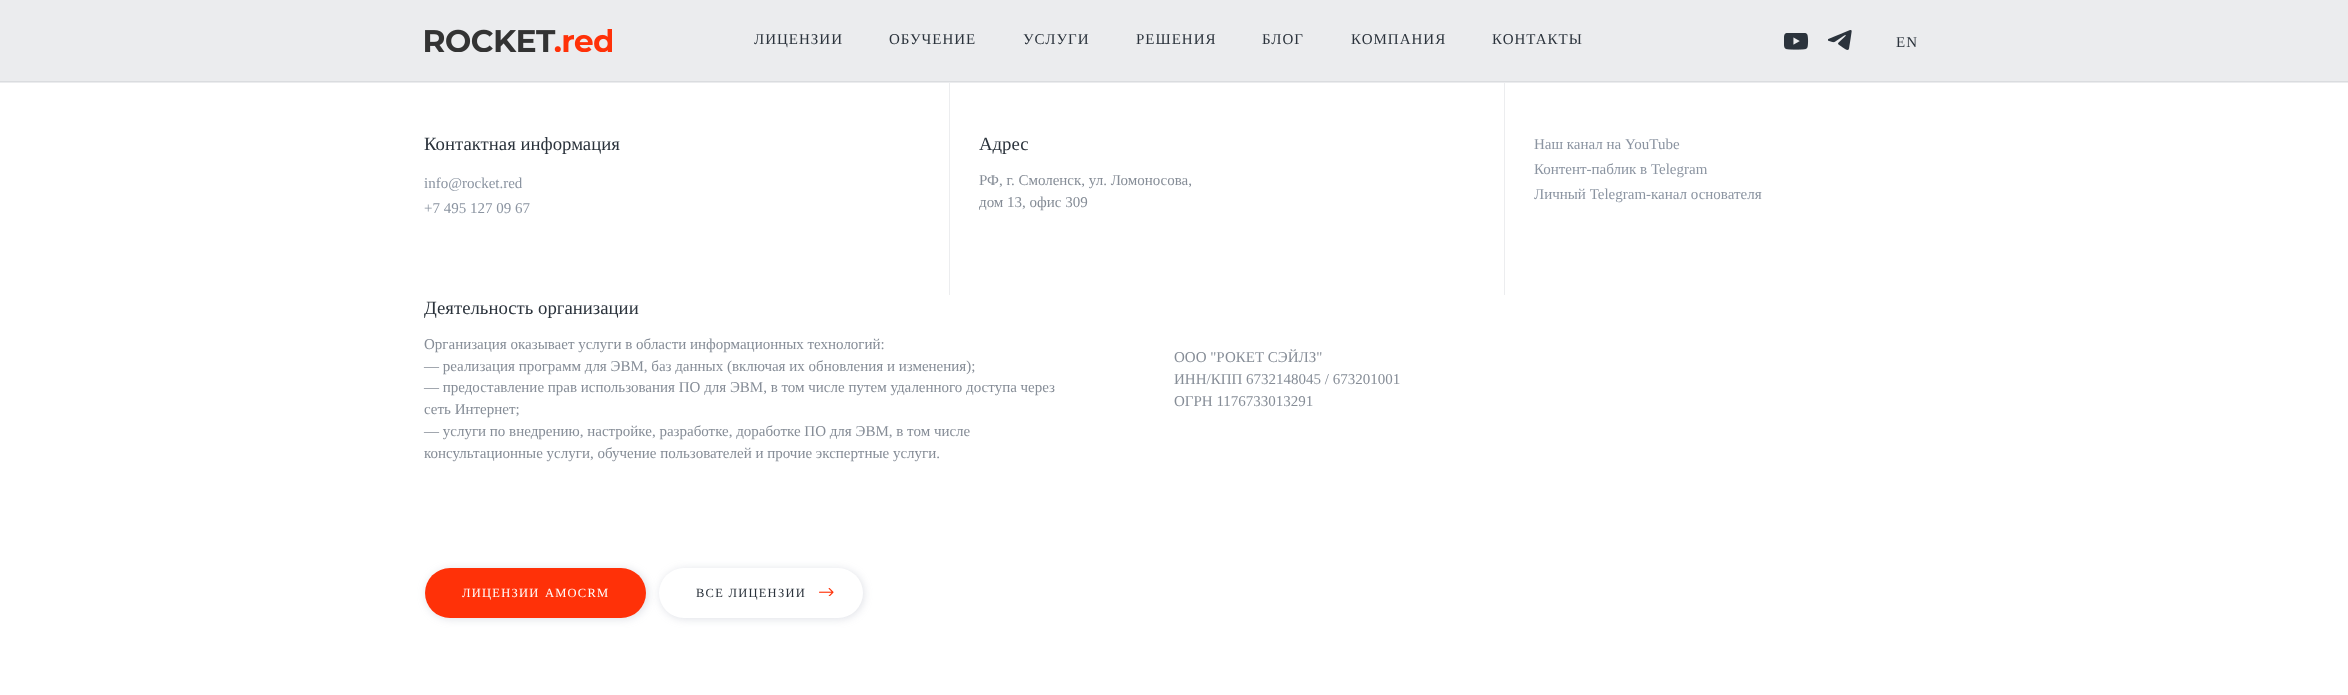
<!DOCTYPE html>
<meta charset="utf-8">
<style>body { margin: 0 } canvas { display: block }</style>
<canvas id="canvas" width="2348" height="695"></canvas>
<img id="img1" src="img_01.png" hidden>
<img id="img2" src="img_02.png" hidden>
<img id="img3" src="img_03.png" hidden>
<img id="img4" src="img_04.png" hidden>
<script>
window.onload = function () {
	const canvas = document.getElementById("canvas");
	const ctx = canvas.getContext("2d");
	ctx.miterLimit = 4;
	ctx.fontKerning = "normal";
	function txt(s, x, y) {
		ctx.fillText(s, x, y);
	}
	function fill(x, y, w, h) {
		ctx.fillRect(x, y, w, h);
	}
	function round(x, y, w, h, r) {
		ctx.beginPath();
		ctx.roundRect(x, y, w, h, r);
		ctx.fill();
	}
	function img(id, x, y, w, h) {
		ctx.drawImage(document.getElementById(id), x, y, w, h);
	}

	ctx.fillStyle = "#FFFFFF";
	fill(0, 0, 2348, 695);
	ctx.fillStyle = "#ECEDEF";
	fill(949, 81, 1, 214);
	fill(1504, 81, 1, 214);
	ctx.fillStyle = "#EBECEE";
	fill(0, 0, 2348, 83);
	ctx.fillStyle = "#DADCDF";
	fill(0, 81, 2348, 1);
	img("img1", 425, 29, 187, 23);
	img("img2", 1784, 33, 25, 17);
	img("img3", 1828, 30, 24, 20);
	ctx.fillStyle = "rgba(132, 142, 163, 0.27)";
	ctx.filter = "blur(4px)";
	ctx.beginPath();
	ctx.roundRect(426, 569, 222, 50, 25);
	ctx.fill();
	ctx.filter = "none";
	ctx.fillStyle = "#FF3108";
	round(425, 568, 221, 50, 25);
	ctx.fillStyle = "rgba(132, 142, 163, 0.27)";
	ctx.filter = "blur(4px)";
	ctx.beginPath();
	ctx.roundRect(660, 569, 204, 50, 25);
	ctx.fill();
	ctx.filter = "none";
	ctx.fillStyle = "#FFFFFF";
	round(659, 568, 204, 50, 25);
	img("img4", 819, 588, 15, 8);
	ctx.letterSpacing = "1px";
	ctx.font = "15px Liberation Serif";
	ctx.fillStyle = "#2B333C";
	txt("ЛИЦЕНЗИИ", 754, 44);
	txt("ОБУЧЕНИЕ", 889, 44);
	txt("УСЛУГИ", 1023, 44);
	txt("РЕШЕНИЯ", 1136, 44);
	txt("БЛОГ", 1262, 44);
	txt("КОМПАНИЯ", 1351, 44);
	txt("КОНТАКТЫ", 1492, 44);
	txt("EN", 1896, 47);
	ctx.letterSpacing = "0px";
	ctx.font = "18.75px Liberation Serif";
	txt("Контактная информация", 424, 150);
	ctx.font = "15px Liberation Serif";
	ctx.fillStyle = "#8B94A1";
	txt("info@rocket.red", 424, 188);
	txt("+7 495 127 09 67", 424, 213);
	ctx.font = "18.75px Liberation Serif";
	ctx.fillStyle = "#2B333C";
	txt("Адрес", 979, 150);
	ctx.font = "15px Liberation Serif";
	ctx.fillStyle = "#868D97";
	txt("РФ, г. Смоленск, ул. Ломоносова,", 979, 185);
	txt("дом 13, офис 309", 979, 207);
	ctx.fillStyle = "#8B94A1";
	txt("Наш канал на YouTube", 1534, 149);
	txt("Контент-паблик в Telegram", 1534, 174);
	txt("Личный Telegram-канал основателя", 1534, 199);
	ctx.font = "18.75px Liberation Serif";
	ctx.fillStyle = "#2B333C";
	txt("Деятельность организации", 424, 314);
	ctx.font = "15px Liberation Serif";
	ctx.fillStyle = "#868D97";
	txt("Организация оказывает услуги в области информационных технологий:", 424, 349);
	txt("— реализация программ для ЭВМ, баз данных (включая их обновления и изменения);", 424, 371);
	txt("— предоставление прав использования ПО для ЭВМ, в том числе путем удаленного доступа через", 424, 392);
	txt("сеть Интернет;", 424, 414);
	txt("— услуги по внедрению, настройке, разработке, доработке ПО для ЭВМ, в том числе", 424, 436);
	txt("консультационные услуги, обучение пользователей и прочие экспертные услуги.", 424, 458);
	txt("ООО \"РОКЕТ СЭЙЛЗ\"", 1174, 362);
	txt("ИНН/КПП 6732148045 / 673201001", 1174, 384);
	txt("ОГРН 1176733013291", 1174, 406);
	ctx.letterSpacing = "1.25px";
	ctx.wordSpacing = "1px";
	ctx.font = "12.5px Liberation Serif";
	ctx.fillStyle = "#FFFFFF";
	txt("ЛИЦЕНЗИИ AMOCRM", 462, 597);
	ctx.wordSpacing = "0px";
	ctx.fillStyle = "#2B333C";
	txt("ВСЕ ЛИЦЕНЗИИ", 696, 597);
};
</script>
